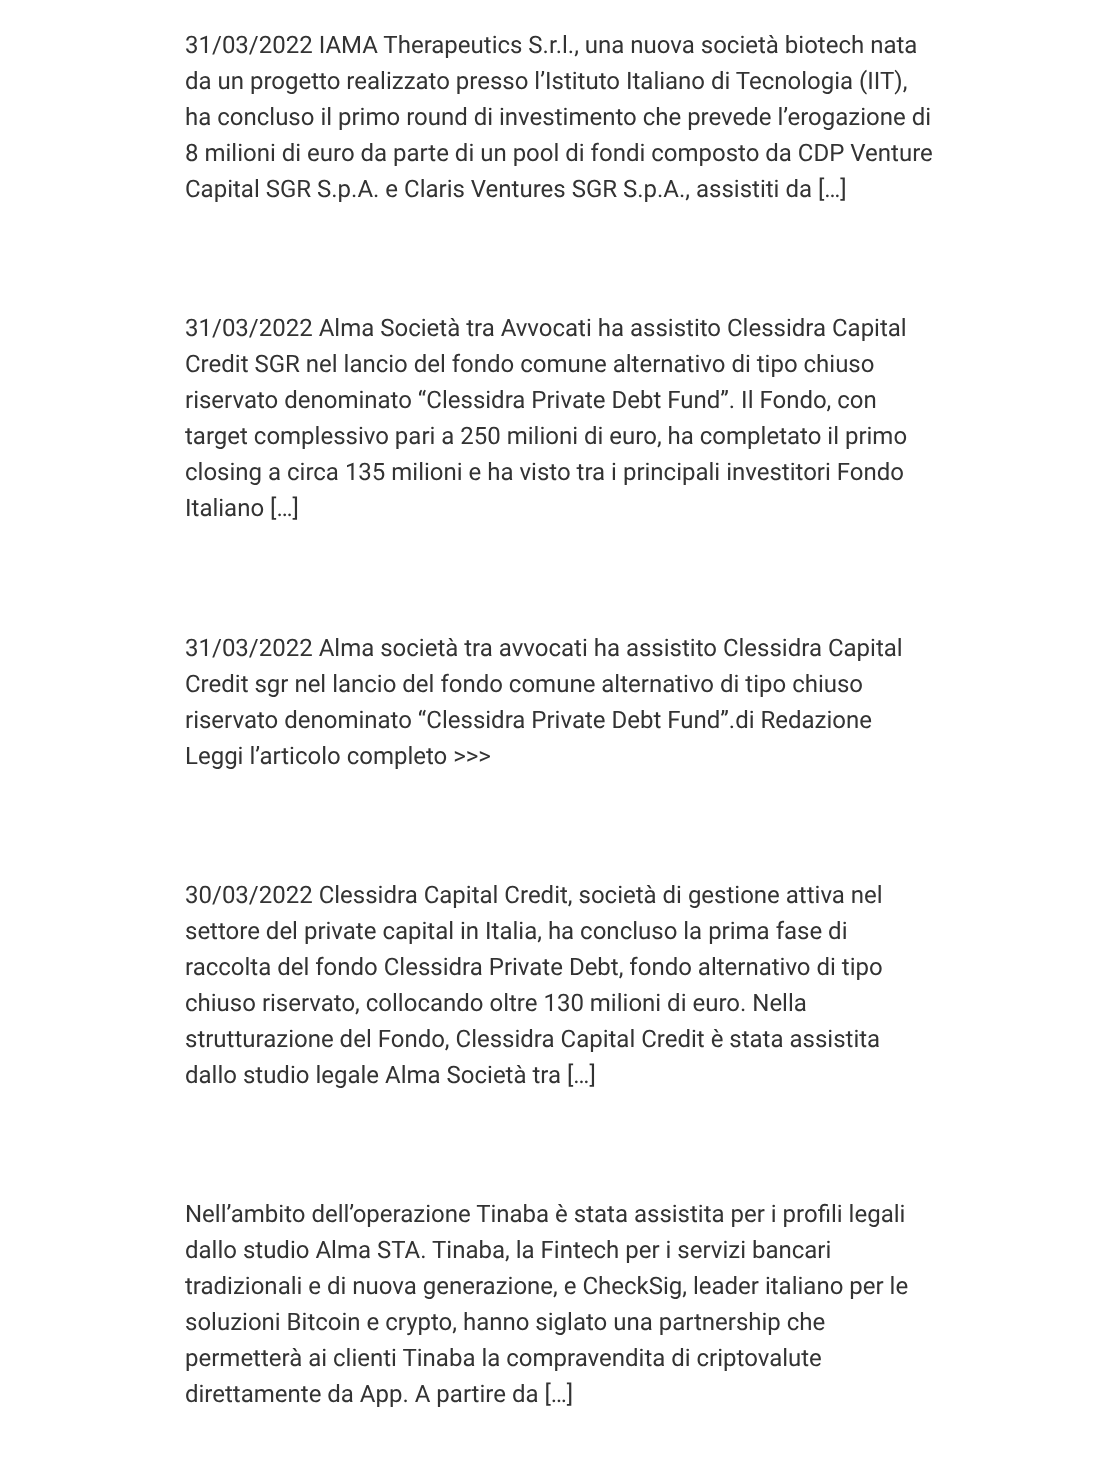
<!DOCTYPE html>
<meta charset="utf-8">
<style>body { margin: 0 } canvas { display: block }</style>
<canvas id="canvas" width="1118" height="1475"></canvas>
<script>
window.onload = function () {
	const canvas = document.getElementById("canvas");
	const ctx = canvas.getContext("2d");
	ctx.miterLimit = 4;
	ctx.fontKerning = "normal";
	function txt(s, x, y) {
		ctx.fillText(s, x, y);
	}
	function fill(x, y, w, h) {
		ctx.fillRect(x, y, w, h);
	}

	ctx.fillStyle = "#FFFFFF";
	fill(0, 0, 1118, 1475);
	ctx.font = "24px Roboto";
	ctx.fillStyle = "#333333";
	txt("31/03/2022 IAMA Therapeutics S.r.l., una nuova società biotech nata", 185, 53);
	txt("da un progetto realizzato presso l’Istituto Italiano di Tecnologia (IIT),", 185, 89);
	txt("ha concluso il primo round di investimento che prevede l’erogazione di", 185, 125);
	txt("8 milioni di euro da parte di un pool di fondi composto da CDP Venture", 185, 161);
	txt("Capital SGR S.p.A. e Claris Ventures SGR S.p.A., assistiti da […]", 185, 197);
	txt("31/03/2022 Alma Società tra Avvocati ha assistito Clessidra Capital", 185, 336);
	txt("Credit SGR nel lancio del fondo comune alternativo di tipo chiuso", 185, 372);
	txt("riservato denominato “Clessidra Private Debt Fund”. Il Fondo, con", 185, 408);
	txt("target complessivo pari a 250 milioni di euro, ha completato il primo", 185, 444);
	txt("closing a circa 135 milioni e ha visto tra i principali investitori Fondo", 185, 480);
	txt("Italiano […]", 185, 516);
	txt("31/03/2022 Alma società tra avvocati ha assistito Clessidra Capital", 185, 656);
	txt("Credit sgr nel lancio del fondo comune alternativo di tipo chiuso", 185, 692);
	txt("riservato denominato “Clessidra Private Debt Fund”.di Redazione", 185, 728);
	txt("Leggi l’articolo completo >>>", 185, 764);
	txt("30/03/2022 Clessidra Capital Credit, società di gestione attiva nel", 185, 903);
	txt("settore del private capital in Italia, ha concluso la prima fase di", 185, 939);
	txt("raccolta del fondo Clessidra Private Debt, fondo alternativo di tipo", 185, 975);
	txt("chiuso riservato, collocando oltre 130 milioni di euro. Nella", 185, 1011);
	txt("strutturazione del Fondo, Clessidra Capital Credit è stata assistita", 185, 1047);
	txt("dallo studio legale Alma Società tra […]", 185, 1083);
	txt("Nell’ambito dell’operazione Tinaba è stata assistita per i profili legali", 185, 1222);
	txt("dallo studio Alma STA. Tinaba, la Fintech per i servizi bancari", 185, 1258);
	txt("tradizionali e di nuova generazione, e CheckSig, leader italiano per le", 185, 1294);
	txt("soluzioni Bitcoin e crypto, hanno siglato una partnership che", 185, 1330);
	txt("permetterà ai clienti Tinaba la compravendita di criptovalute", 185, 1366);
	txt("direttamente da App. A partire da […]", 185, 1402);
};
</script>
